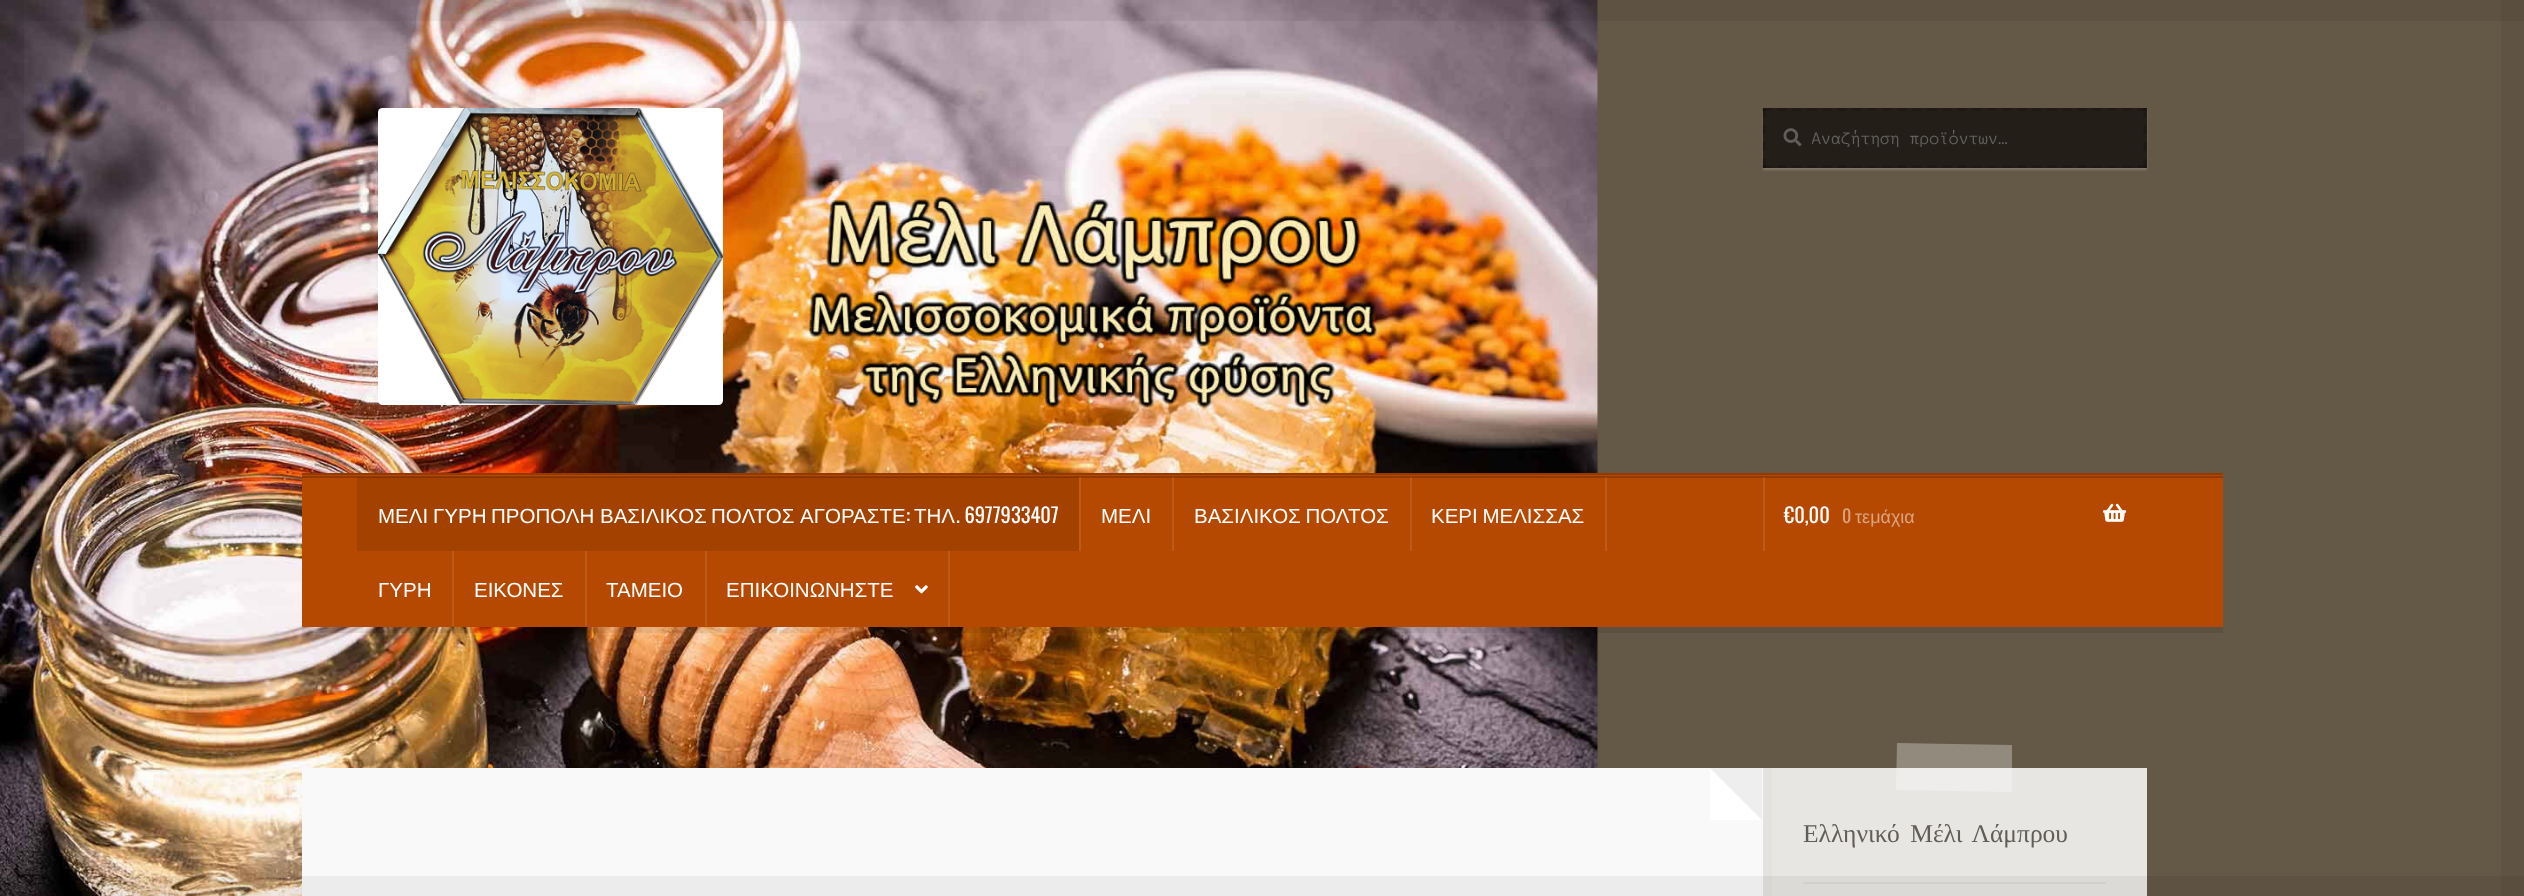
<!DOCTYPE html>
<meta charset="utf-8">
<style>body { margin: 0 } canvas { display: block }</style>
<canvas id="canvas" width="2524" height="896"></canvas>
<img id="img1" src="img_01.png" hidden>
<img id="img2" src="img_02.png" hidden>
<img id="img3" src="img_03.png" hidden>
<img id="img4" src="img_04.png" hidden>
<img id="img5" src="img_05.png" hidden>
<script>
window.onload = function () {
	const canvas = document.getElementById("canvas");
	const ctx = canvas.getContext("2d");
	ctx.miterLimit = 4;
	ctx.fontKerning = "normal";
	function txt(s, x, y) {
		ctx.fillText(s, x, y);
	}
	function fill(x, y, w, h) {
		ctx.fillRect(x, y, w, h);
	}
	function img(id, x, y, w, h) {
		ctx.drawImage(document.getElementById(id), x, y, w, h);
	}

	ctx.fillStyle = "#645846";
	fill(0, 0, 2524, 896);
	img("img1", 0, 0, 1599, 896);
	ctx.fillStyle = "rgba(0, 0, 0, 0.05)";
	fill(0, 0, 24, 896);
	ctx.fillStyle = "#5F5443";
	fill(2501, 0, 23, 896);
	ctx.fillStyle = "rgba(0, 0, 0, 0.05)";
	fill(0, 0, 2524, 21);
	img("img2", 378, 108, 345, 297);
	ctx.save();
	ctx.beginPath();
	ctx.moveTo(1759, 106);
	ctx.lineTo(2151, 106);
	ctx.lineTo(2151, 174);
	ctx.lineTo(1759, 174);
	ctx.closePath();
	ctx.moveTo(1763, 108);
	ctx.lineTo(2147, 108);
	ctx.lineTo(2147, 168);
	ctx.lineTo(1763, 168);
	ctx.closePath();
	ctx.clip("evenodd");
	ctx.fillStyle = "rgba(255, 255, 255, 0.2)";
	ctx.filter = "blur(1px)";
	ctx.beginPath();
	ctx.rect(1763, 110, 384, 60);
	ctx.fill();
	ctx.filter = "none";
	ctx.restore();
	ctx.fillStyle = "rgba(0, 0, 0, 0.65)";
	fill(1763, 108, 384, 60);
	img("img3", 1783, 128, 19, 19);
	ctx.beginPath();
	ctx.moveTo(1762.5, 109.5);
	ctx.lineTo(2146.5, 109.5);
	ctx.strokeStyle = "rgba(0, 0, 0, 0.15)";
	ctx.lineWidth = 3;
	ctx.setLineDash([9, 6]);
	ctx.stroke();
	ctx.beginPath();
	ctx.moveTo(2145, 108);
	ctx.lineTo(2145, 168);
	ctx.setLineDash([9, 8]);
	ctx.stroke();
	ctx.beginPath();
	ctx.moveTo(1762.5, 166.5);
	ctx.lineTo(2146.5, 166.5);
	ctx.setLineDash([9, 6]);
	ctx.stroke();
	ctx.beginPath();
	ctx.moveTo(1764, 108);
	ctx.lineTo(1764, 168);
	ctx.setLineDash([9, 8]);
	ctx.stroke();
	ctx.fillStyle = "rgba(0, 0, 0, 0.07)";
	fill(302, 627, 1921, 6);
	ctx.fillStyle = "#B64902";
	fill(302, 475, 1921, 152);
	ctx.fillStyle = "#BD5B1B";
	fill(1763, 477, 2, 74);
	fill(1605, 477, 2, 74);
	ctx.fillStyle = "#923A02";
	fill(302, 473, 1921, 2);
	fill(302, 476, 1921, 2);
	ctx.fillStyle = "#9D4E1B";
	fill(1763, 477, 2, 1);
	fill(1605, 477, 2, 1);
	ctx.fillStyle = "rgba(255, 255, 255, 0.1)";
	fill(1079, 477, 2, 74);
	ctx.fillStyle = "rgba(0, 0, 0, 0.1)";
	fill(357, 477, 722, 74);
	ctx.fillStyle = "rgba(255, 255, 255, 0.1)";
	fill(1172, 477, 2, 74);
	fill(1410, 477, 2, 74);
	ctx.fillStyle = "#BD5B1B";
	fill(452, 551, 2, 75);
	fill(585, 551, 2, 75);
	fill(705, 551, 2, 75);
	fill(948, 551, 2, 76);
	img("img4", 915, 585, 13, 9);
	img("img5", 2103, 503, 24, 19);
	ctx.fillStyle = "#F9F9F9";
	fill(302, 768, 1461, 128);
	ctx.fillStyle = "#FFFFFF";
	ctx.beginPath();
	ctx.moveTo(1762, 820);
	ctx.lineTo(1710, 820);
	ctx.lineTo(1710, 768);
	ctx.closePath();
	ctx.fill();
	ctx.fillStyle = "#EEEEEE";
	ctx.beginPath();
	ctx.moveTo(1762, 768);
	ctx.lineTo(1762, 820);
	ctx.lineTo(1710, 768);
	ctx.closePath();
	ctx.fill();
	ctx.fillStyle = "#E8E6E3";
	fill(1772, 768, 375, 128);
	ctx.fillStyle = "#E4E2DF";
	fill(1763, 768, 9, 128);
	ctx.fillStyle = "rgba(255, 255, 255, 0.3)";
	ctx.beginPath();
	ctx.moveTo(1897, 743);
	ctx.lineTo(2012, 745);
	ctx.lineTo(2012, 792);
	ctx.lineTo(1896, 790);
	ctx.closePath();
	ctx.fill();
	ctx.fillStyle = "#DCDBD8";
	fill(1803, 882, 303, 2);
	ctx.fillStyle = "rgba(0, 0, 0, 0.05)";
	fill(0, 876, 2524, 20);
	ctx.save();
	ctx.beginPath();
	ctx.rect(1812, 129, 300, 18);
	ctx.clip();
	ctx.font = "18px Anonymous Pro";
	ctx.fillStyle = "#616161";
	txt("Αναζήτηση προϊόντων…", 1812, 144);
	ctx.restore();
	ctx.font = "20.5px Liberation Sans";
	ctx.fillStyle = "#FFFFFF";
	txt("ΜΕΛΙ", 378, 523);
	txt("ΓΥΡΗ", 433, 523);
	txt("ΠΡΟΠΟΛΗ", 491, 523);
	txt("ΒΑΣΙΛΙΚΟΣ", 600, 523);
	txt("ΠΟΛΤΟΣ", 711, 523);
	txt("ΑΓΟΡΑΣΤΕ", 800, 523);
	ctx.font = "20.5px Oswald";
	txt(":", 906, 523);
	ctx.font = "20.5px Liberation Sans";
	txt("ΤΗΛ", 914, 523);
	ctx.font = "20.5px Oswald";
	txt(". 6977933407", 956, 523);
	ctx.font = "20.5px Liberation Sans";
	txt("ΜΕΛΙ", 1101, 523);
	ctx.wordSpacing = "-1px";
	txt("ΒΑΣΙΛΙΚΟΣ ΠΟΛΤΟΣ", 1194, 523);
	txt("ΚΕΡΙ ΜΕΛΙΣΣΑΣ", 1431, 523);
	ctx.wordSpacing = "0px";
	txt("ΓΥΡΗ", 378, 597);
	txt("ΕΙΚΟΝΕΣ", 474, 597);
	txt("ΤΑΜΕΙΟ", 606, 597);
	txt("ΕΠΙΚΟΙΝΩΝΗΣΤΕ", 726, 597);
	ctx.font = "20.5px Oswald";
	txt("€0,00", 1784, 523);
	ctx.font = "18px Oswald";
	ctx.fillStyle = "#DBA481";
	txt("0", 1842, 523);
	ctx.font = "18px Liberation Sans";
	txt("τεμάχια", 1855, 523);
	ctx.wordSpacing = "4px";
	ctx.font = "25.5px Liberation Serif";
	ctx.fillStyle = "#615D59";
	txt("Ελληνικό Μέλι Λάμπρου", 1803, 842);
};
</script>
